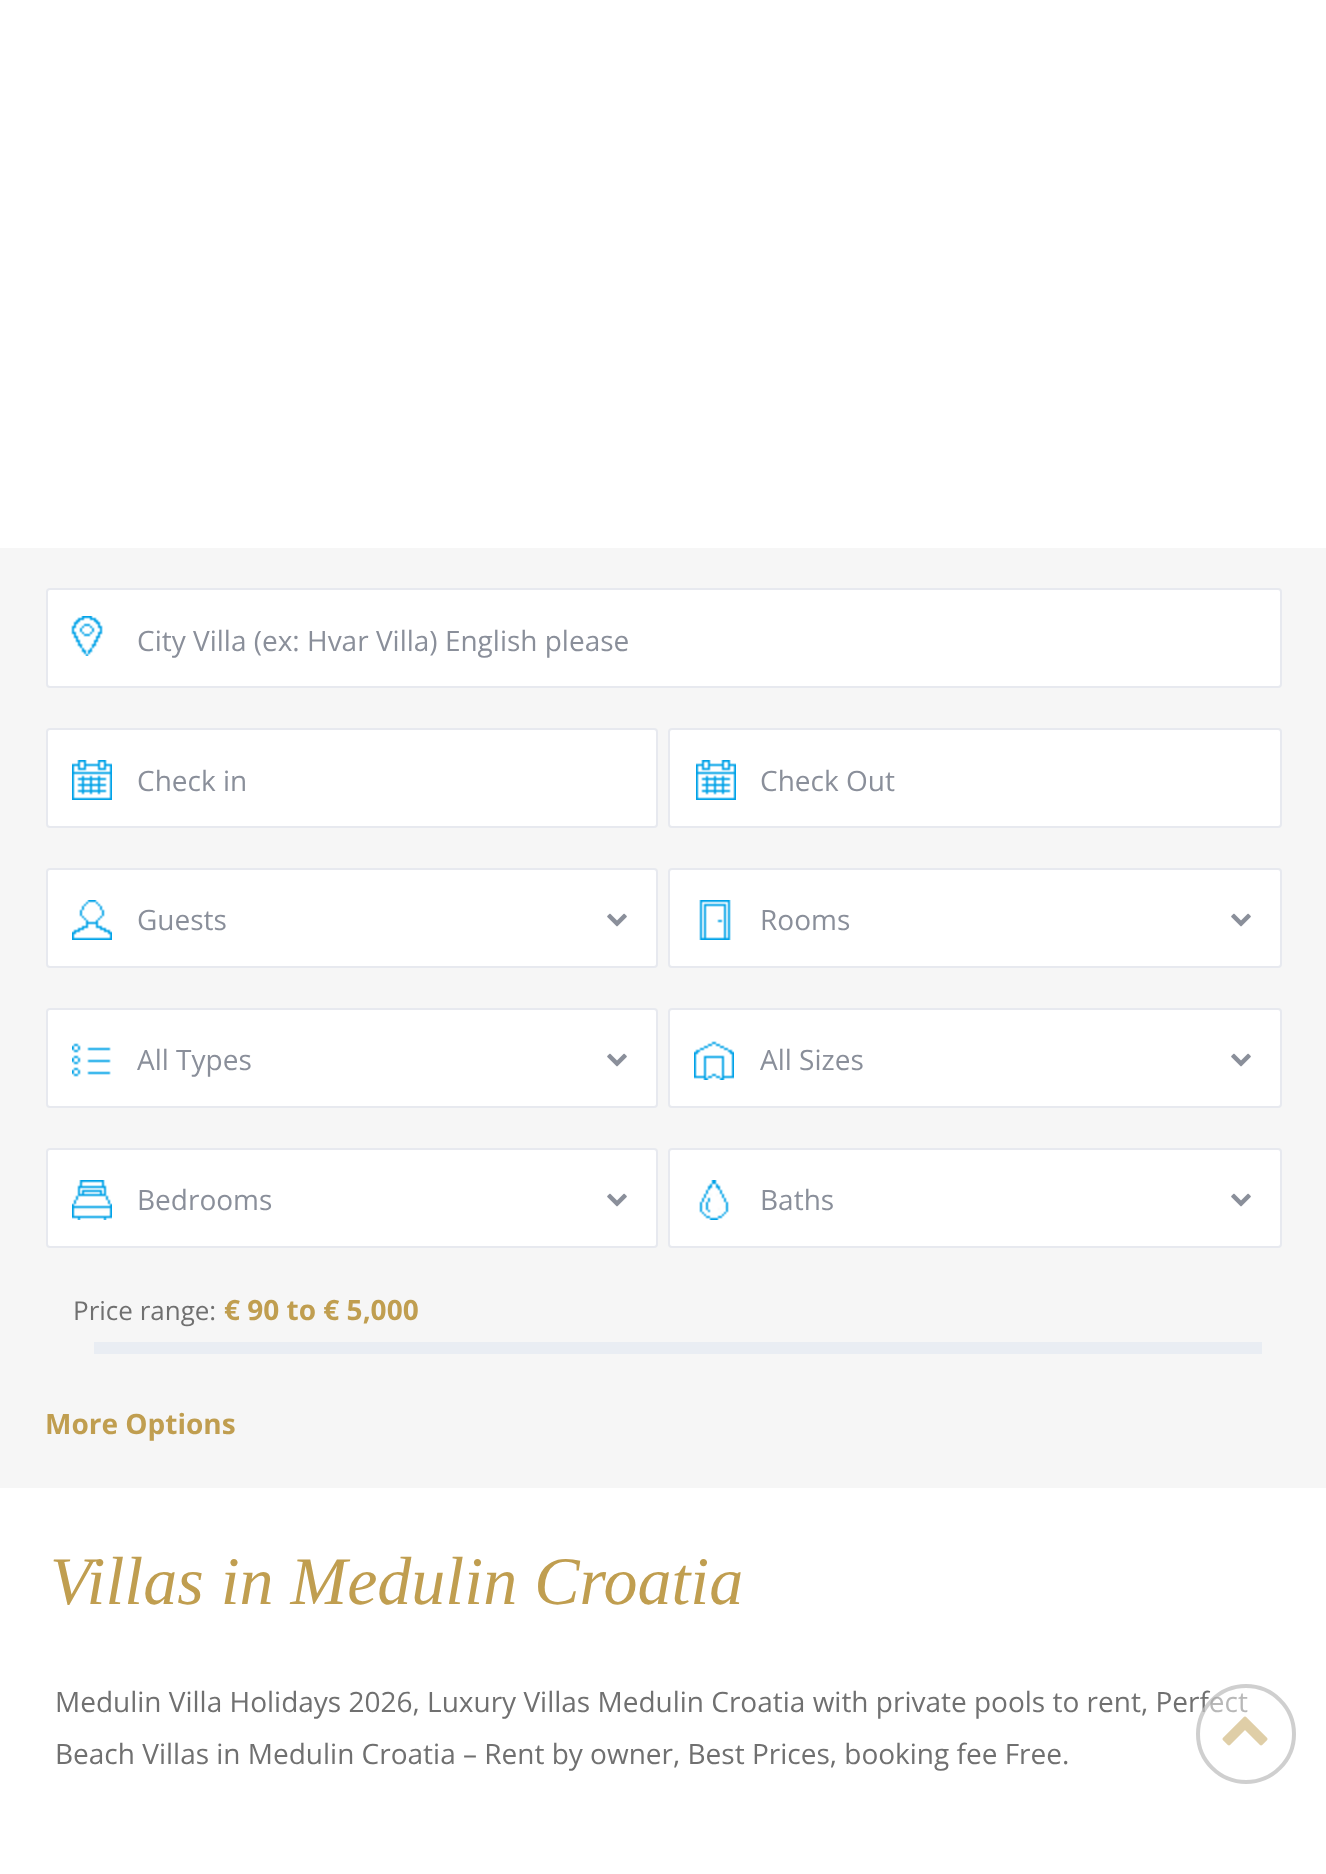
<!DOCTYPE html>
<meta charset="utf-8">
<style>body { margin: 0 } canvas { display: block }</style>
<canvas id="canvas" width="1326" height="1874"></canvas>
<img id="img1" src="img_01.png" hidden>
<img id="img2" src="img_02.png" hidden>
<img id="img3" src="img_03.png" hidden>
<img id="img4" src="img_04.png" hidden>
<img id="img5" src="img_05.png" hidden>
<img id="img6" src="img_06.png" hidden>
<img id="img7" src="img_07.png" hidden>
<img id="img8" src="img_08.png" hidden>
<img id="img9" src="img_09.png" hidden>
<img id="img10" src="img_10.png" hidden>
<script>
window.onload = function () {
	const canvas = document.getElementById("canvas");
	const ctx = canvas.getContext("2d");
	ctx.miterLimit = 4;
	ctx.fontKerning = "normal";
	function txt(s, x, y) {
		ctx.fillText(s, x, y);
	}
	function fill(x, y, w, h) {
		ctx.fillRect(x, y, w, h);
	}
	function img(id, x, y, w, h) {
		ctx.drawImage(document.getElementById(id), x, y, w, h);
	}

	ctx.fillStyle = "#FFFFFF";
	fill(0, 0, 1326, 1874);
	ctx.fillStyle = "#F6F6F6";
	fill(0, 548, 1326, 940);
	ctx.fillStyle = "#FFFFFF";
	ctx.beginPath();
	ctx.roundRect(47, 589, 1234, 98, 3);
	ctx.fill();
	ctx.strokeStyle = "#E7E9EF";
	ctx.lineWidth = 2;
	ctx.stroke();
	img("img1", 71, 616, 32, 40);
	ctx.beginPath();
	ctx.roundRect(47, 729, 610, 98, 3);
	ctx.fill();
	ctx.stroke();
	img("img2", 72, 760, 40, 40);
	ctx.beginPath();
	ctx.roundRect(669, 729, 612, 98, 3);
	ctx.fill();
	ctx.stroke();
	img("img2", 696, 760, 40, 40);
	ctx.beginPath();
	ctx.roundRect(47, 869, 610, 98, 3);
	ctx.fill();
	ctx.stroke();
	img("img3", 72, 900, 40, 40);
	img("img4", 607, 913, 20, 14);
	ctx.beginPath();
	ctx.roundRect(669, 869, 612, 98, 3);
	ctx.fill();
	ctx.stroke();
	img("img5", 699, 900, 32, 40);
	img("img4", 1231, 913, 20, 14);
	ctx.beginPath();
	ctx.roundRect(47, 1009, 610, 98, 3);
	ctx.fill();
	ctx.stroke();
	img("img6", 72, 1043, 39, 34);
	img("img4", 607, 1053, 20, 14);
	ctx.beginPath();
	ctx.roundRect(669, 1009, 612, 98, 3);
	ctx.fill();
	ctx.stroke();
	img("img7", 694, 1041, 40, 39);
	img("img4", 1231, 1053, 20, 14);
	ctx.beginPath();
	ctx.roundRect(47, 1149, 610, 98, 3);
	ctx.fill();
	ctx.stroke();
	img("img8", 72, 1180, 40, 40);
	img("img4", 607, 1193, 20, 14);
	ctx.beginPath();
	ctx.roundRect(669, 1149, 612, 98, 3);
	ctx.fill();
	ctx.stroke();
	img("img9", 699, 1180, 30, 40);
	img("img4", 1231, 1193, 20, 14);
	ctx.fillStyle = "#E9EDF3";
	fill(94, 1342, 1168, 12);
	ctx.font = "28px Open Sans";
	ctx.fillStyle = "#8A8F9A";
	txt("City Villa (ex: Hvar Villa) English please", 137, 651);
	txt("Check in", 137, 791);
	txt("Check Out", 760, 791);
	txt("Guests", 137, 930);
	txt("Rooms", 760, 930);
	txt("All Types", 137, 1070);
	txt("All Sizes", 760, 1070);
	txt("Bedrooms", 137, 1210);
	txt("Baths", 760, 1210);
	ctx.font = "26px Open Sans";
	ctx.fillStyle = "#707070";
	txt("Price range:", 73, 1320);
	ctx.font = "bold 28px Open Sans";
	ctx.fillStyle = "#C09E50";
	txt("€ 90 to € 5,000", 224, 1320);
	txt("More Options", 45, 1434);
	ctx.font = "italic 68px Liberation Serif";
	txt("Villas in Medulin Croatia", 50, 1604);
	ctx.font = "28px Open Sans";
	ctx.fillStyle = "#707070";
	txt("Medulin Villa Holidays 2026, Luxury Villas Medulin Croatia with private pools to rent, Perfect", 55, 1712);
	txt("Beach Villas in Medulin Croatia – Rent by owner, Best Prices, booking fee Free.", 55, 1764);
	ctx.fillStyle = "rgba(255, 255, 255, 0.5)";
	ctx.beginPath();
	ctx.arc(1246, 1734, 50, 0, Math.PI * 2);
	ctx.fill();
	ctx.beginPath();
	ctx.arc(1246, 1734, 48, 0, Math.PI * 2);
	ctx.strokeStyle = "rgba(160, 160, 160, 0.5)";
	ctx.lineWidth = 4;
	ctx.stroke();
	img("img10", 1222, 1716, 46, 30);
};
</script>
